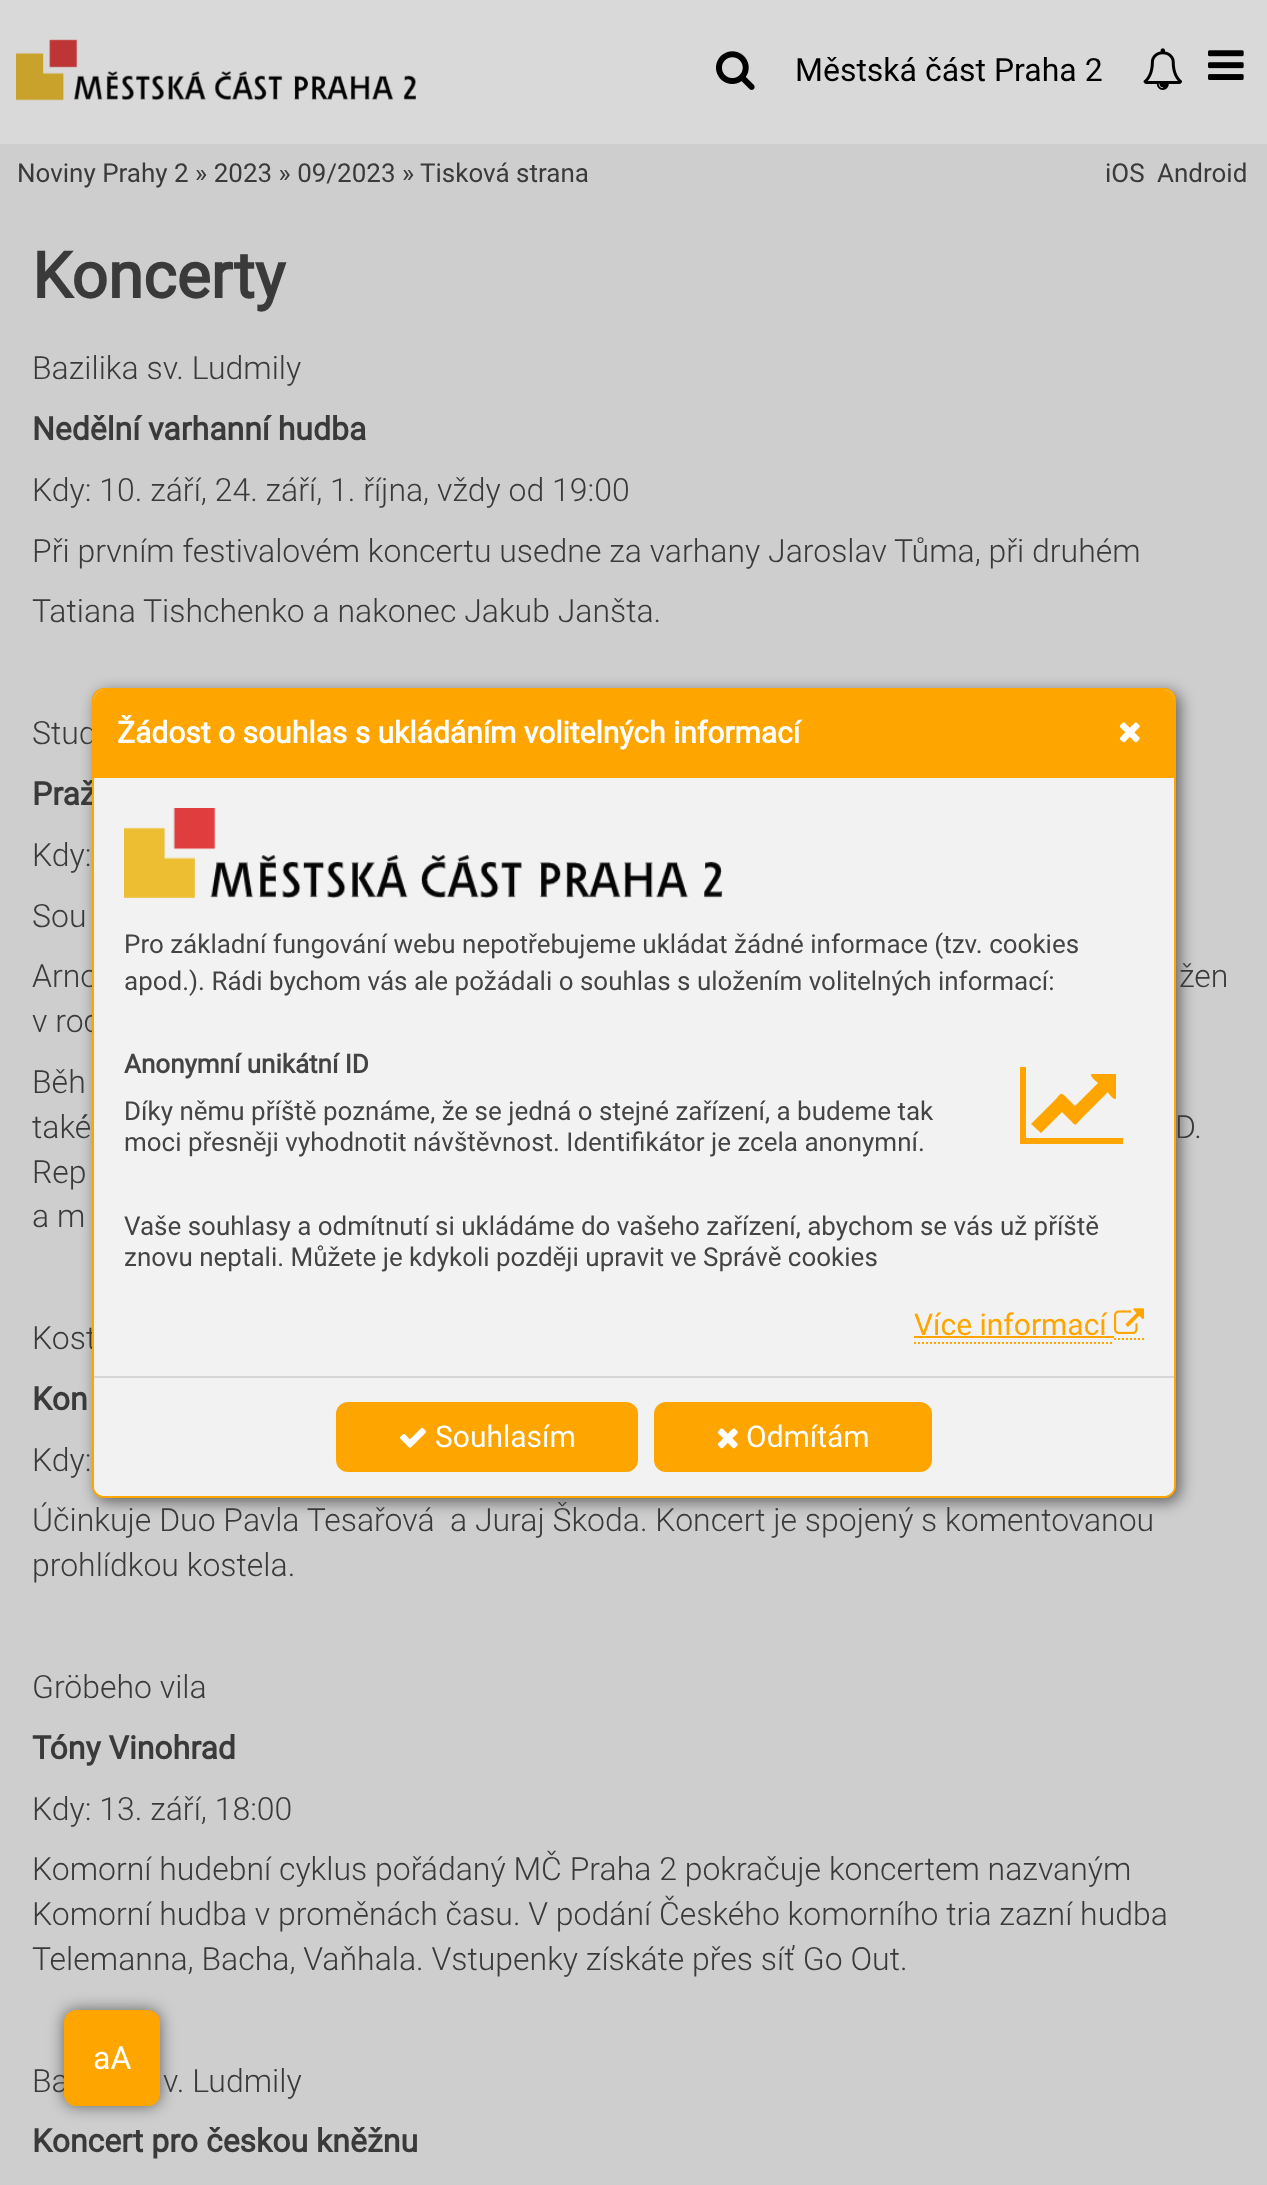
<!DOCTYPE html>
<meta charset="utf-8">
<style>body { margin: 0 } canvas { display: block }</style>
<canvas id="canvas" width="1267" height="2185"></canvas>
<img id="img1" src="img_01.png" hidden>
<img id="img2" src="img_02.png" hidden>
<img id="img3" src="img_03.png" hidden>
<img id="img4" src="img_04.png" hidden>
<img id="img5" src="img_05.png" hidden>
<img id="img6" src="img_06.png" hidden>
<img id="img7" src="img_07.png" hidden>
<img id="img8" src="img_08.png" hidden>
<script>
window.onload = function () {
	const canvas = document.getElementById("canvas");
	const ctx = canvas.getContext("2d");
	ctx.miterLimit = 4;
	ctx.fontKerning = "normal";
	function txt(s, x, y) {
		ctx.fillText(s, x, y);
	}
	function fill(x, y, w, h) {
		ctx.fillRect(x, y, w, h);
	}
	function round(x, y, w, h, r) {
		ctx.beginPath();
		ctx.roundRect(x, y, w, h, r);
		ctx.fill();
	}
	function img(id, x, y, w, h) {
		ctx.drawImage(document.getElementById(id), x, y, w, h);
	}

	ctx.fillStyle = "#CECECE";
	fill(0, 0, 1267, 2185);
	ctx.fillStyle = "#D9D9D9";
	fill(0, 0, 1267, 144);
	img("img1", 16, 39, 400, 62);
	img("img2", 716, 51, 39, 39);
	img("img3", 1143, 48, 40, 42);
	img("img4", 1208, 50, 36, 30);
	ctx.fillStyle = "rgba(0, 0, 0, 0.53)";
	ctx.filter = "blur(7.5px)";
	ctx.beginPath();
	ctx.roundRect(96, 692, 1084, 810, 12);
	ctx.fill();
	ctx.filter = "none";
	ctx.filter = "blur(8px)";
	ctx.beginPath();
	ctx.roundRect(64, 2010, 96, 96, 12);
	ctx.fill();
	ctx.filter = "none";
	ctx.font = "32px Roboto";
	ctx.fillStyle = "#000000";
	txt("Městská část Praha 2", 795, 81);
	ctx.font = "26px Roboto";
	ctx.fillStyle = "#3A3A3A";
	txt("Noviny Prahy 2 » 2023 » 09/2023 » Tisková strana", 17, 182);
	txt("iOS", 1105, 182);
	txt("Android", 1157, 182);
	ctx.font = "bold 64px Roboto";
	txt("Koncerty", 32, 298);
	ctx.font = "300 32px Roboto";
	txt("Bazilika sv. Ludmily", 32, 379);
	ctx.font = "bold 32px Roboto";
	txt("Nedělní varhanní hudba", 32, 440);
	ctx.font = "300 32px Roboto";
	txt("Kdy: 10. září, 24. září, 1. října, vždy od 19:00", 32, 501);
	txt("Při prvním festivalovém koncertu usedne za varhany Jaroslav Tůma, při druhém", 32, 562);
	txt("Tatiana Tishchenko a nakonec Jakub Janšta.", 32, 622);
	txt("Stud", 32, 744);
	ctx.font = "bold 32px Roboto";
	txt("Praž", 32, 805);
	ctx.font = "300 32px Roboto";
	txt("Kdy:", 32, 866);
	txt("Sou", 32, 927);
	txt("Arno", 32, 987);
	txt("žen", 1179, 987);
	txt("v roc", 32, 1032);
	txt("Běh", 32, 1093);
	txt("také́", 32, 1138);
	txt("D.", 1175, 1138);
	txt("Rep", 32, 1183);
	txt("a m", 32, 1227);
	txt("Kost", 32, 1349);
	ctx.font = "bold 32px Roboto";
	txt("Kon", 32, 1410);
	ctx.font = "300 32px Roboto";
	txt("Kdy:", 32, 1471);
	txt("Účinkuje Duo Pavla Tesařová", 32, 1531);
	txt("a Juraj Škoda. Koncert je spojený s komentovanou", 450, 1531);
	txt("prohlídkou kostela.", 32, 1576);
	txt("Gröbeho vila", 32, 1698);
	ctx.font = "bold 32px Roboto";
	txt("Tóny Vinohrad", 32, 1759);
	ctx.font = "300 32px Roboto";
	txt("Kdy: 13. září, 18:00", 32, 1820);
	txt("Komorní hudební cyklus pořádaný MČ Praha 2 pokračuje koncertem nazvaným", 32, 1880);
	txt("Komorní hudba v proměnách času. V podání Českého komorního tria zazní hudba", 32, 1925);
	txt("Telemanna, Bacha, Vaňhala. Vstupenky získáte přes síť Go Out.", 32, 1970);
	txt("Ba", 32, 2092);
	txt("v. Ludmily", 163, 2092);
	ctx.font = "bold 32px Roboto";
	txt("Koncert pro českou kněžnu", 32, 2152);
	ctx.fillStyle = "#F2F2F2";
	ctx.beginPath();
	ctx.roundRect(93, 689, 1082, 808, 11);
	ctx.fill();
	ctx.strokeStyle = "#FEA500";
	ctx.lineWidth = 2;
	ctx.stroke();
	ctx.fillStyle = "#FEA500";
	ctx.beginPath();
	ctx.roundRect(94, 690, 1080, 88, [10, 10, 0, 0]);
	ctx.fill();
	ctx.font = "bold 30px Roboto";
	ctx.fillStyle = "#FFFFFF";
	txt("Žádost o souhlas s ukládáním volitelných informací", 117, 743);
	img("img5", 1119, 722, 21, 21);
	img("img6", 124, 808, 599, 90);
	ctx.font = "26px Roboto";
	ctx.fillStyle = "#444444";
	txt("Pro základní fungování webu nepotřebujeme ukládat žádné informace (tzv. cookies", 124, 953);
	txt("apod.). Rádi bychom vás ale požádali o souhlas s uložením volitelných informací:", 124, 990);
	ctx.font = "bold 26px Roboto";
	txt("Anonymní unikátní ID", 124, 1073);
	ctx.fillStyle = "#FEA500";
	ctx.beginPath();
	ctx.moveTo(1123, 1138);
	ctx.lineTo(1123, 1144);
	ctx.lineTo(1020, 1144);
	ctx.lineTo(1020, 1067);
	ctx.lineTo(1026, 1067);
	ctx.lineTo(1026, 1138);
	ctx.closePath();
	ctx.moveTo(1116, 1075);
	ctx.lineTo(1116, 1098);
	ctx.bezierCurveTo(1115, 1102, 1108, 1093, 1108, 1092);
	ctx.lineTo(1081, 1119);
	ctx.bezierCurveTo(1076, 1124, 1076, 1127, 1072, 1122);
	ctx.lineTo(1062, 1112);
	ctx.lineTo(1041, 1133);
	ctx.lineTo(1031, 1124);
	ctx.lineTo(1056, 1099);
	ctx.bezierCurveTo(1061, 1094, 1060, 1092, 1065, 1096);
	ctx.lineTo(1075, 1106);
	ctx.lineTo(1098, 1083);
	ctx.bezierCurveTo(1097, 1082, 1088, 1075, 1092, 1074);
	ctx.lineTo(1115, 1074);
	ctx.bezierCurveTo(1116, 1074, 1116, 1074, 1116, 1075);
	ctx.closePath();
	ctx.fill();
	ctx.font = "26px Roboto";
	ctx.fillStyle = "#444444";
	txt("Díky němu příště poznáme, že se jedná o stejné zařízení, a budeme tak", 124, 1120);
	txt("moci přesněji vyhodnotit návštěvnost. Identifikátor je zcela anonymní.", 124, 1151);
	txt("Vaše souhlasy a odmítnutí si ukládáme do vašeho zařízení, abychom se vás už příště", 124, 1235);
	txt("znovu neptali. Můžete je kdykoli později upravit ve Správě cookies", 124, 1266);
	ctx.beginPath();
	ctx.moveTo(914, 1343);
	ctx.lineTo(1114, 1343);
	ctx.setLineDash([2, 2]);
	ctx.stroke();
	ctx.beginPath();
	ctx.moveTo(1114, 1339);
	ctx.lineTo(1144, 1339);
	ctx.stroke();
	ctx.font = "30px Roboto";
	ctx.fillStyle = "#FEA500";
	txt("Více informací", 914, 1335);
	fill(914, 1336, 200, 2);
	img("img7", 1114, 1308, 30, 26);
	ctx.fillStyle = "#F2F2F2";
	ctx.beginPath();
	ctx.roundRect(94, 1376, 1080, 120, [0, 0, 10, 10]);
	ctx.fill();
	ctx.fillStyle = "#D6D6D6";
	fill(94, 1376, 1080, 2);
	ctx.fillStyle = "#FEA500";
	ctx.beginPath();
	ctx.roundRect(337, 1403, 300, 68, 11);
	ctx.fill();
	ctx.setLineDash([]);
	ctx.stroke();
	img("img8", 400, 1427, 26, 21);
	ctx.fillStyle = "#FFFFFF";
	txt("Souhlasím", 435, 1447);
	ctx.fillStyle = "#FEA500";
	ctx.beginPath();
	ctx.roundRect(655, 1403, 276, 68, 11);
	ctx.fill();
	ctx.stroke();
	img("img5", 717, 1428, 21, 21);
	ctx.fillStyle = "#FFFFFF";
	txt("Odmítám", 746, 1447);
	ctx.fillStyle = "#FEA500";
	round(64, 2010, 96, 96, 12);
	ctx.font = "32px Roboto";
	ctx.fillStyle = "#FFFFFF";
	txt("aA", 93, 2069);
};
</script>
